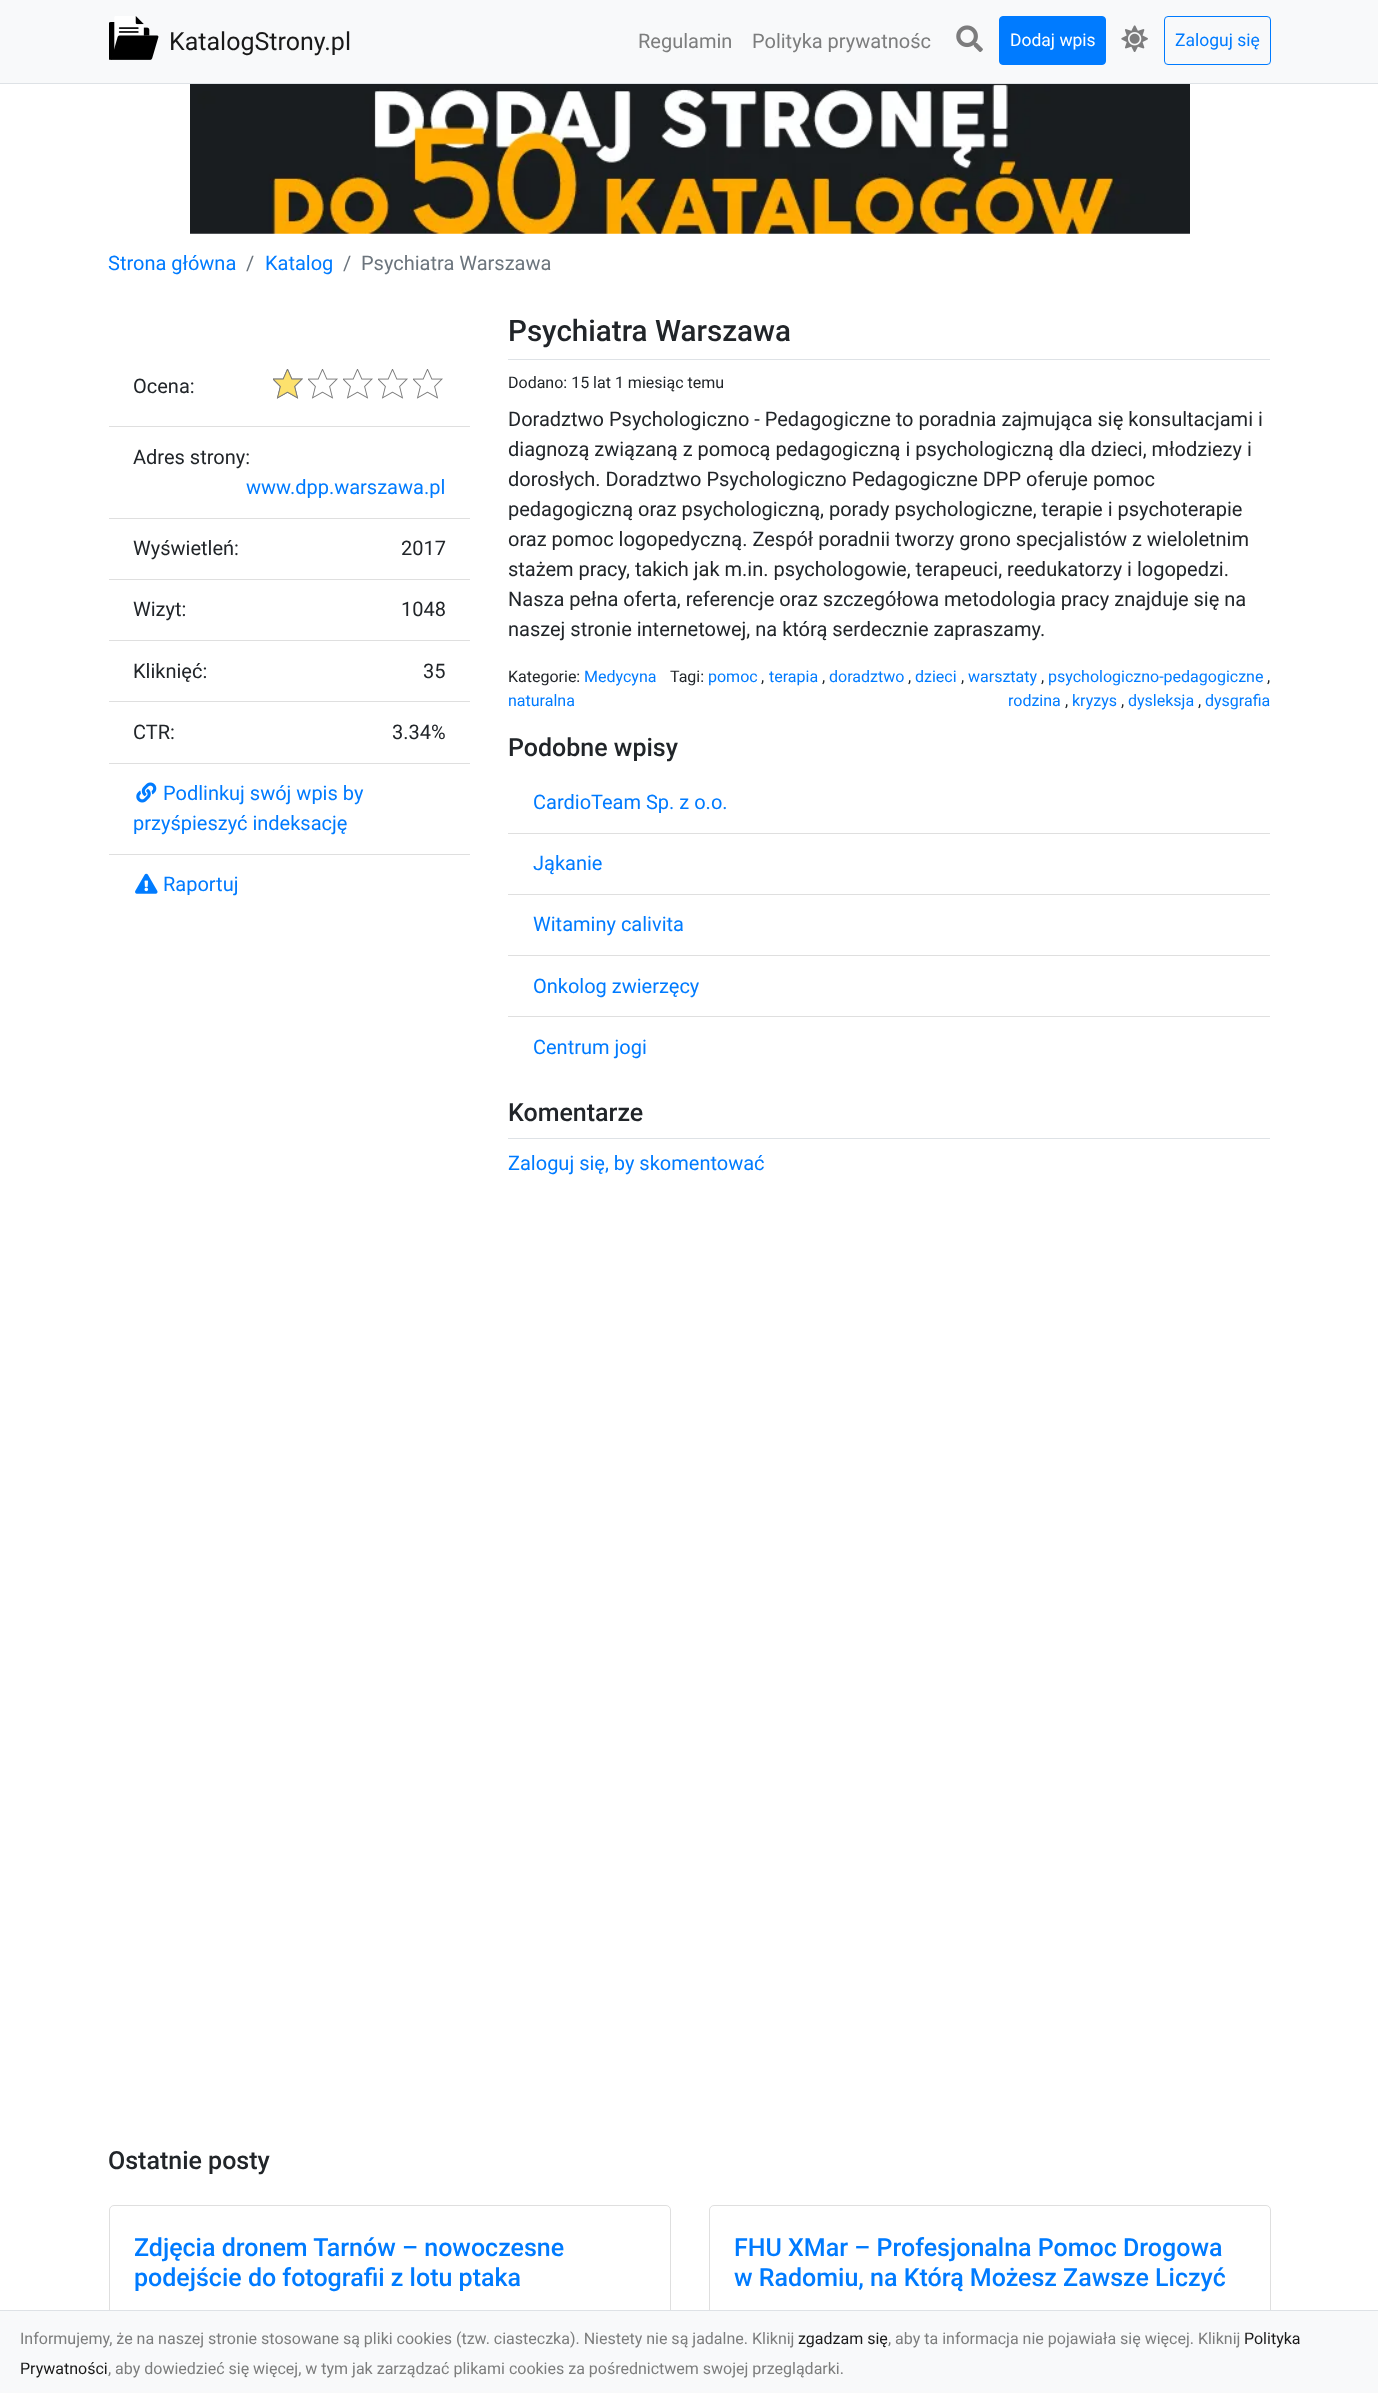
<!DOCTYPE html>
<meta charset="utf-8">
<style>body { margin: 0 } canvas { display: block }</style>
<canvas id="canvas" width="1378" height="2393"></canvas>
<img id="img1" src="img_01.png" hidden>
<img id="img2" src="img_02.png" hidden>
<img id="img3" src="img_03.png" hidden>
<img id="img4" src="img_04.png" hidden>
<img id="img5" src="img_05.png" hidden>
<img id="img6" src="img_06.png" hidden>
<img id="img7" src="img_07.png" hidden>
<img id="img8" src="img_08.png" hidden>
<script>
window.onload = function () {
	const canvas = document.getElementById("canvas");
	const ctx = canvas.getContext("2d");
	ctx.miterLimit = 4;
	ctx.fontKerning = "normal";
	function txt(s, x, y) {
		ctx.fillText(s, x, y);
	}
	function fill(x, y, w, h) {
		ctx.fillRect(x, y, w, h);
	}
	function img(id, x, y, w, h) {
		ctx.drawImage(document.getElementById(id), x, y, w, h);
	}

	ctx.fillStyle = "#FFFFFF";
	fill(0, 0, 1378, 2393);
	ctx.fillStyle = "#F8F9FA";
	fill(0, 0, 1378, 83);
	ctx.fillStyle = "#DEE2E6";
	fill(0, 83, 1378, 1);
	img("img1", 109, 16, 50, 44);
	img("img2", 956, 25, 27, 27);
	ctx.fillStyle = "#007BFF";
	ctx.beginPath();
	ctx.roundRect(999.5, 16.5, 106, 48, 3.5);
	ctx.fill();
	ctx.strokeStyle = "#007BFF";
	ctx.stroke();
	img("img3", 1121, 25, 27, 27);
	ctx.beginPath();
	ctx.roundRect(1164.5, 16.5, 106, 48, 3.5);
	ctx.stroke();
	img("img4", 190, 84, 1000, 150);
	ctx.fillStyle = "#DFDFDF";
	fill(109, 426, 361, 1);
	img("img5", 273, 369, 30, 30);
	img("img5", 308, 369, 30, 30);
	img("img5", 343, 369, 30, 30);
	img("img5", 378, 369, 30, 30);
	img("img5", 413, 369, 30, 30);
	img("img6", 273, 369, 30, 30);
	fill(109, 518, 361, 1);
	fill(109, 579, 361, 1);
	fill(109, 640, 361, 1);
	fill(109, 701, 361, 1);
	fill(109, 763, 361, 1);
	fill(109, 854, 361, 1);
	img("img7", 136, 782, 21, 21);
	img("img8", 135, 873, 23, 21);
	ctx.fillStyle = "#DEE2E6";
	fill(508, 359, 762, 1);
	ctx.fillStyle = "#DFDFDF";
	fill(508, 833, 762, 1);
	fill(508, 894, 762, 1);
	fill(508, 955, 762, 1);
	fill(508, 1016, 762, 1);
	ctx.fillStyle = "#DEE2E6";
	fill(508, 1138, 762, 1);
	ctx.beginPath();
	ctx.roundRect(109.5, 2205.5, 561, 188, 4.5);
	ctx.strokeStyle = "#DFDFDF";
	ctx.stroke();
	ctx.beginPath();
	ctx.roundRect(709.5, 2205.5, 561, 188, 4.5);
	ctx.stroke();
	ctx.fillStyle = "#F8F9FA";
	fill(0, 2311, 1378, 82);
	ctx.fillStyle = "#DEE2E6";
	fill(0, 2310, 1378, 1);
	ctx.font = "25px Roboto";
	ctx.fillStyle = "#191919";
	txt("KatalogStrony.pl", 169, 50);
	ctx.font = "20px Roboto";
	ctx.fillStyle = "#7C7D7D";
	txt("Regulamin", 638, 48);
	txt("Polityka prywatnośc", 752, 48);
	ctx.font = "17.5px Roboto";
	ctx.fillStyle = "#FFFFFF";
	txt("Dodaj wpis", 1010, 46);
	ctx.fillStyle = "#007BFF";
	txt("Zaloguj się", 1175, 46);
	ctx.font = "20px Roboto";
	txt("Strona główna", 108, 270);
	ctx.fillStyle = "#6C757D";
	txt("/", 246, 270);
	ctx.fillStyle = "#007BFF";
	txt("Katalog", 265, 270);
	ctx.fillStyle = "#6C757D";
	txt("/", 343, 270);
	txt("Psychiatra Warszawa", 361, 270);
	ctx.fillStyle = "#212529";
	txt("Ocena:", 133, 393);
	txt("Adres strony:", 133, 464);
	ctx.fillStyle = "#007BFF";
	txt("www.dpp.warszawa.pl", 246, 494);
	ctx.fillStyle = "#212529";
	txt("Wyświetleń:", 133, 555);
	txt("2017", 401, 555);
	txt("Wizyt:", 133, 616);
	txt("1048", 401, 616);
	txt("Kliknięć:", 133, 678);
	txt("35", 423, 678);
	txt("CTR:", 133, 739);
	txt("3.34%", 392, 739);
	ctx.fillStyle = "#007BFF";
	txt("Podlinkuj swój wpis by", 163, 800);
	txt("przyśpieszyć indeksację", 133, 830);
	txt("Raportuj", 163, 891);
	ctx.font = "500 29.6px Roboto";
	ctx.fillStyle = "#212529";
	txt("Psychiatra Warszawa", 508, 341);
	ctx.font = "16px Roboto";
	txt("Dodano: 15 lat 1 miesiąc temu", 508, 388);
	ctx.font = "20px Roboto";
	txt("Doradztwo Psychologiczno - Pedagogiczne to poradnia zajmująca się konsultacjami i", 508, 426);
	txt("diagnozą związaną z pomocą pedagogiczną i psychologiczną dla dzieci, młodziezy i", 508, 456);
	txt("dorosłych. Doradztwo Psychologiczno Pedagogiczne DPP oferuje pomoc", 508, 486);
	txt("pedagogiczną oraz psychologiczną, porady psychologiczne, terapie i psychoterapie", 508, 516);
	txt("oraz pomoc logopedyczną. Zespół poradnii tworzy grono specjalistów z wieloletnim", 508, 546);
	txt("stażem pracy, takich jak m.in. psychologowie, terapeuci, reedukatorzy i logopedzi.", 508, 576);
	txt("Nasza pełna oferta, referencje oraz szczegółowa metodologia pracy znajduje się na", 508, 606);
	txt("naszej stronie internetowej, na którą serdecznie zapraszamy.", 508, 636);
	ctx.font = "16px Roboto";
	txt("Kategorie:", 508, 682);
	ctx.fillStyle = "#007BFF";
	txt("Medycyna", 584, 682);
	txt("naturalna", 508, 706);
	ctx.fillStyle = "#212529";
	txt("Tagi:", 670, 682);
	ctx.fillStyle = "#007BFF";
	txt("pomoc", 708, 682);
	ctx.fillStyle = "#212529";
	txt(",", 761, 682);
	ctx.fillStyle = "#007BFF";
	txt("terapia", 769, 682);
	ctx.fillStyle = "#212529";
	txt(",", 822, 682);
	ctx.fillStyle = "#007BFF";
	txt("doradztwo", 829, 682);
	ctx.fillStyle = "#212529";
	txt(",", 908, 682);
	ctx.fillStyle = "#007BFF";
	txt("dzieci", 915, 682);
	ctx.fillStyle = "#212529";
	txt(",", 961, 682);
	ctx.fillStyle = "#007BFF";
	txt("warsztaty", 968, 682);
	ctx.fillStyle = "#212529";
	txt(",", 1041, 682);
	ctx.fillStyle = "#007BFF";
	txt("psychologiczno-pedagogiczne", 1048, 682);
	ctx.fillStyle = "#212529";
	txt(",", 1267, 682);
	ctx.fillStyle = "#007BFF";
	txt("rodzina", 1008, 706);
	ctx.fillStyle = "#212529";
	txt(",", 1065, 706);
	ctx.fillStyle = "#007BFF";
	txt("kryzys", 1072, 706);
	ctx.fillStyle = "#212529";
	txt(",", 1121, 706);
	ctx.fillStyle = "#007BFF";
	txt("dysleksja", 1128, 706);
	ctx.fillStyle = "#212529";
	txt(",", 1198, 706);
	ctx.fillStyle = "#007BFF";
	txt("dysgrafia", 1205, 706);
	ctx.font = "500 25px Roboto";
	ctx.fillStyle = "#212529";
	txt("Podobne wpisy", 508, 756);
	ctx.font = "20px Roboto";
	ctx.fillStyle = "#007BFF";
	txt("CardioTeam Sp. z o.o.", 533, 809);
	txt("Jąkanie", 533, 870);
	txt("Witaminy calivita", 533, 931);
	txt("Onkolog zwierzęcy", 533, 993);
	txt("Centrum jogi", 533, 1054);
	ctx.font = "500 25px Roboto";
	ctx.fillStyle = "#212529";
	txt("Komentarze", 508, 1121);
	ctx.font = "20px Roboto";
	ctx.fillStyle = "#007BFF";
	txt("Zaloguj się, by skomentować", 508, 1170);
	ctx.font = "500 25px Roboto";
	ctx.fillStyle = "#212529";
	txt("Ostatnie posty", 108, 2169);
	ctx.fillStyle = "#007BFF";
	txt("Zdjęcia dronem Tarnów – nowoczesne", 134, 2256);
	txt("podejście do fotografii z lotu ptaka", 134, 2286);
	txt("FHU XMar – Profesjonalna Pomoc Drogowa", 734, 2256);
	txt("w Radomiu, na Którą Możesz Zawsze Liczyć", 734, 2286);
	ctx.font = "16px Roboto";
	ctx.fillStyle = "#7C7D7D";
	txt("Informujemy, że na naszej stronie stosowane są pliki cookies (tzw. ciasteczka). Niestety nie są jadalne. Kliknij", 20, 2344);
	ctx.fillStyle = "#191919";
	txt("zgadzam się", 798, 2344);
	ctx.fillStyle = "#7C7D7D";
	txt(", aby ta informacja nie pojawiała się więcej. Kliknij", 888, 2344);
	ctx.fillStyle = "#191919";
	txt("Polityka", 1244, 2344);
	txt("Prywatności", 20, 2374);
	ctx.fillStyle = "#7C7D7D";
	txt(", aby dowiedzieć się więcej, w tym jak zarządzać plikami cookies za pośrednictwem swojej przeglądarki.", 108, 2374);
};
</script>
